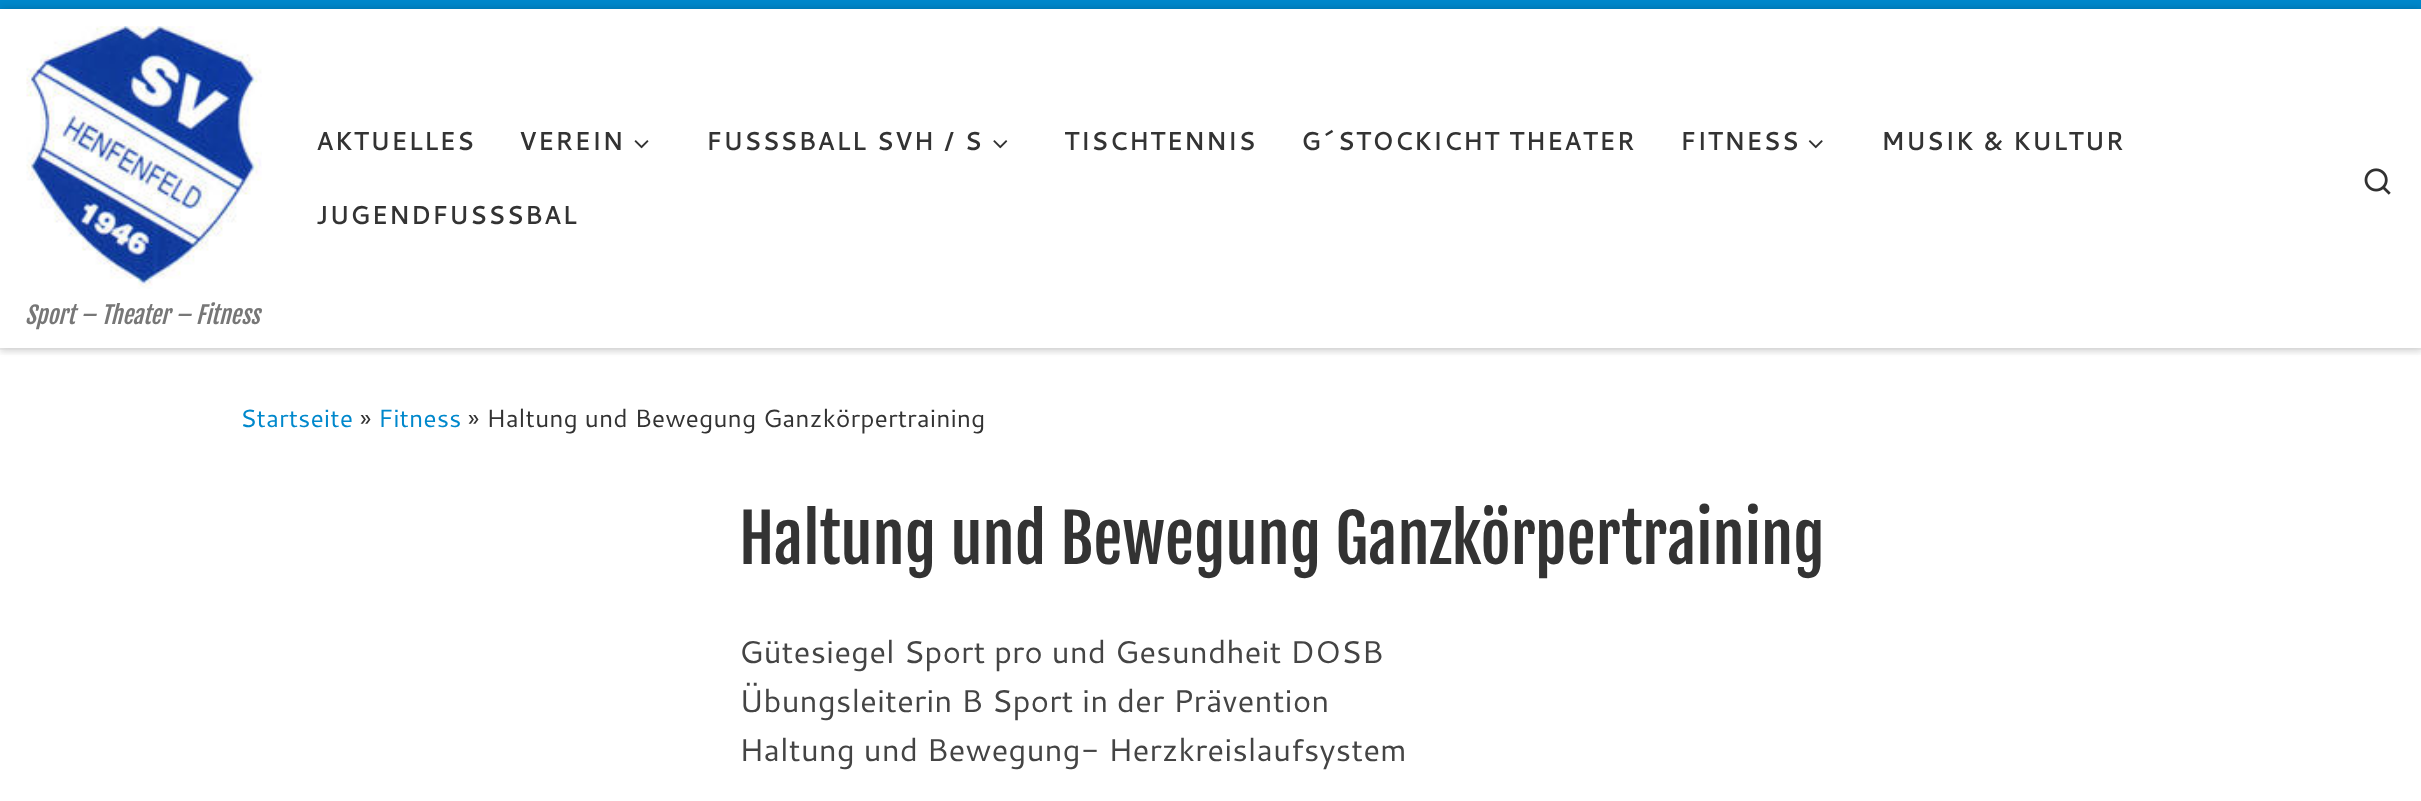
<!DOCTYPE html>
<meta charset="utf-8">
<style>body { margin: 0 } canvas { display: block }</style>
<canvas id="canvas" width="2421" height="801"></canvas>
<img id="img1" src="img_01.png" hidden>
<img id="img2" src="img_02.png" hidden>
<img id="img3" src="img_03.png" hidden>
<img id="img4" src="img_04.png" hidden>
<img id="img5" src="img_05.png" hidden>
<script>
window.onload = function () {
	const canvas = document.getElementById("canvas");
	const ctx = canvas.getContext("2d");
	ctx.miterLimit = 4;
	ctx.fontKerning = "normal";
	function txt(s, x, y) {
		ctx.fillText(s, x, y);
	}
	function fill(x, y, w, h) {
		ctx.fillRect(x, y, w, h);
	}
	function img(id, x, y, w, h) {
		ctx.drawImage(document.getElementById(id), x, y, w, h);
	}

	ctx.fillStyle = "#FFFFFF";
	fill(0, 0, 2421, 801);
	ctx.save();
	ctx.beginPath();
	ctx.rect(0, 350, 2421, 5);
	ctx.clip();
	ctx.fillStyle = "rgba(102, 102, 102, 0.08)";
	ctx.filter = "blur(2px)";
	ctx.beginPath();
	ctx.rect(0, 4, 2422, 350);
	ctx.fill();
	ctx.filter = "none";
	ctx.restore();
	ctx.fillStyle = "#0088CC";
	fill(0, 0, 2421, 9);
	ctx.fillStyle = "#EFEFEF";
	fill(0, 348, 2421, 2);
	ctx.save();
	ctx.beginPath();
	ctx.moveTo(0, 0);
	ctx.lineTo(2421, 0);
	ctx.lineTo(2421, 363);
	ctx.lineTo(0, 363);
	ctx.closePath();
	ctx.moveTo(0, 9);
	ctx.lineTo(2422, 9);
	ctx.lineTo(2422, 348);
	ctx.lineTo(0, 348);
	ctx.closePath();
	ctx.clip("evenodd");
	ctx.fillStyle = "rgba(0, 0, 0, 0.2)";
	ctx.filter = "blur(4.5px)";
	ctx.beginPath();
	ctx.rect(0, 9, 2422, 339);
	ctx.fill();
	ctx.filter = "none";
	ctx.restore();
	img("img1", 634, 140, 15, 9);
	img("img2", 993, 140, 15, 9);
	img("img3", 1808, 140, 15, 9);
	img("img4", 2364, 168, 27, 27);
	img("img5", 26, 26, 236, 263);
	ctx.letterSpacing = "1.75px";
	ctx.font = "bold 24.9px Cantarell";
	ctx.fillStyle = "#333333";
	txt("AKTUELLES", 316, 150);
	txt("VEREIN", 519, 150);
	txt("FUSS", 706, 150);
	ctx.wordSpacing = "1px";
	txt("SBALL SVH / S", 780, 150);
	ctx.wordSpacing = "0px";
	txt("TISCHTENNIS", 1064, 150);
	txt("G´STOCKICHT THEATER", 1301, 150);
	txt("FITNESS", 1680, 150);
	txt("MUSIK & KULTUR", 1881, 150);
	txt("JUGENDFUSSSBAL", 316, 224);
	ctx.letterSpacing = "0px";
	ctx.font = "italic 23.6px Fjalla One";
	ctx.fillStyle = "#777777";
	txt("Sport – Theater – Fitness", 25, 324);
	ctx.font = "24.9px Cantarell";
	ctx.fillStyle = "#0088CC";
	txt("Startseite", 240, 427);
	ctx.fillStyle = "#333333";
	txt("»", 360, 427);
	ctx.fillStyle = "#0088CC";
	txt("Fitness", 378, 427);
	ctx.fillStyle = "#333333";
	txt("» Haltung und Bewegung Ganzkörpertraining", 468, 427);
	ctx.font = "65.3px Fjalla One";
	txt("Haltung und Bewegung Ganzkörpertraining", 739, 564);
	ctx.font = "31.5px Cantarell";
	ctx.fillStyle = "#444444";
	txt("Gütesiegel Sport pro und Gesundheit DOSB", 739, 663);
	txt("Übungsleiterin B Sport in der Prävention", 739, 712);
	txt("Haltung und Bewegung- Herzkreislaufsystem", 739, 761);
};
</script>
